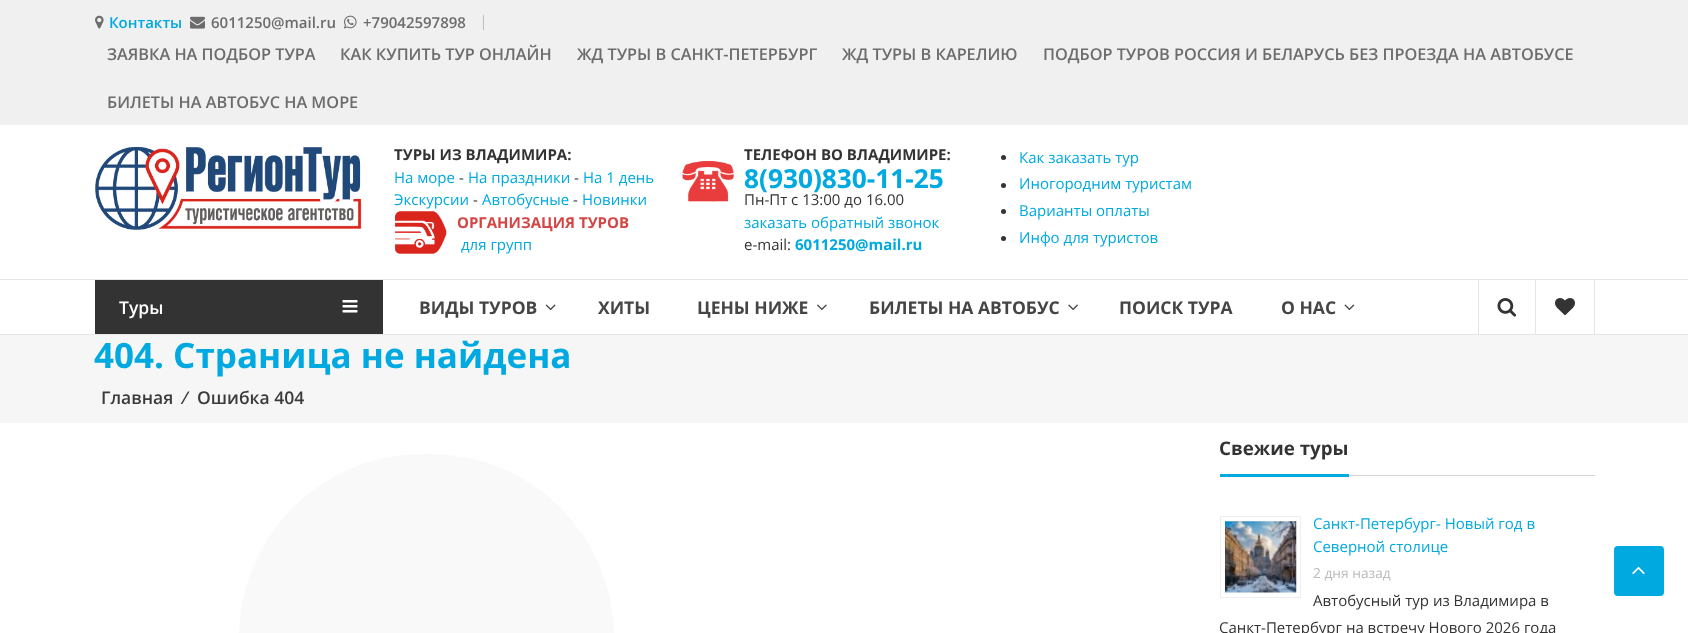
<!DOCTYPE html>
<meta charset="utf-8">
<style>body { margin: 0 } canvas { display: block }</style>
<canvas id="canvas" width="1688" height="633"></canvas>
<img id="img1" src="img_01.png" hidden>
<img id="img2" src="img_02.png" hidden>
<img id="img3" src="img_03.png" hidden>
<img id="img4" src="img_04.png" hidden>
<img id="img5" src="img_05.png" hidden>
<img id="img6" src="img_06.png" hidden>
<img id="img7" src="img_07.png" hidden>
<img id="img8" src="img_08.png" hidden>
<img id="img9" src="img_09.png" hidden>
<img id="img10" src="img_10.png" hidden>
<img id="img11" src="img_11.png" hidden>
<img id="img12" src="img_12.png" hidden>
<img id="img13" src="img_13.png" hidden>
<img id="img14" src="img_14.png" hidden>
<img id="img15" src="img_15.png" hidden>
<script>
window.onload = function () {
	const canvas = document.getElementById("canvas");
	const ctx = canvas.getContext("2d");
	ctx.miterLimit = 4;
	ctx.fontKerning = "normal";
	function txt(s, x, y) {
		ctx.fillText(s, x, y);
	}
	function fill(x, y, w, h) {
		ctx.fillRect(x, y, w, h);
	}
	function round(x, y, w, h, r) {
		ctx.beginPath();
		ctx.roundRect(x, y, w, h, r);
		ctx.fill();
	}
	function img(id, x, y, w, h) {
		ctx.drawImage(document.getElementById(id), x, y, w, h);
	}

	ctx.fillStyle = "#FFFFFF";
	fill(0, 0, 1688, 633);
	ctx.fillStyle = "#F0F0F0";
	fill(0, 0, 1688, 125);
	ctx.fillStyle = "#C0BFBF";
	fill(483, 15, 1, 15);
	img("img1", 95, 15, 9, 14);
	img("img2", 190, 16, 15, 13);
	img("img3", 343, 15, 14, 14);
	img("img4", 95, 147, 267, 83);
	img("img5", 395, 211, 52, 43);
	img("img6", 682, 160, 52, 42);
	ctx.fillStyle = "#333333";
	ctx.beginPath();
	ctx.arc(1003.5, 157.5, 2.5, 0, Math.PI * 2);
	ctx.fill();
	ctx.beginPath();
	ctx.arc(1003.5, 185.5, 2.5, 0, Math.PI * 2);
	ctx.fill();
	ctx.beginPath();
	ctx.arc(1003.5, 211.5, 2.5, 0, Math.PI * 2);
	ctx.fill();
	ctx.beginPath();
	ctx.arc(1003.5, 238.5, 2.5, 0, Math.PI * 2);
	ctx.fill();
	ctx.fillStyle = "#E5E5E5";
	fill(0, 279, 1688, 1);
	fill(0, 334, 1688, 1);
	ctx.fillStyle = "#333333";
	fill(95, 280, 288, 54);
	img("img7", 342, 300, 16, 13);
	img("img8", 545, 304, 11, 7);
	img("img9", 817, 304, 10, 7);
	img("img10", 1068, 304, 10, 7);
	img("img11", 1344, 304, 11, 7);
	ctx.fillStyle = "#E5E5E5";
	fill(1478, 280, 1, 54);
	img("img12", 1497, 298, 20, 19);
	fill(1594, 280, 1, 54);
	fill(1535, 280, 1, 54);
	img("img13", 1555, 298, 20, 18);
	ctx.fillStyle = "#F6F6F6";
	fill(0, 335, 1688, 88);
	ctx.fillStyle = "#F9F9F9";
	round(239, 454, 375, 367, 187.5);
	ctx.fillStyle = "#D6D6D6";
	fill(1349, 475, 246, 1);
	ctx.fillStyle = "#00A9E0";
	fill(1220, 474, 129, 3);
	ctx.strokeStyle = "#EEEEEE";
	ctx.strokeRect(1220.5, 516.5, 80, 81);
	img("img14", 1225, 521, 72, 72);
	round(1614, 546, 50, 50, 4);
	img("img15", 1632, 566, 13, 9);
	ctx.font = "600 15px Open Sans";
	txt("Контакты", 109, 28);
	ctx.fillStyle = "#6D6C6C";
	txt("6011250@mail.ru", 211, 28);
	txt("+79042597898", 363, 28);
	ctx.font = "600 16.25px Open Sans";
	txt("ЗАЯВКА НА ПОДБОР ТУРА", 107, 60);
	txt("КАК КУПИТЬ ТУР ОНЛАЙН", 340, 60);
	txt("ЖД ТУРЫ В САНКТ-ПЕТЕРБУРГ", 577, 60);
	txt("ЖД ТУРЫ В КАРЕЛИЮ", 842, 60);
	txt("ПОДБОР ТУРОВ РОССИЯ И БЕЛАРУСЬ БЕЗ ПРОЕЗДА НА АВТОБУСЕ", 1043, 60);
	txt("БИЛЕТЫ НА АВТОБУС НА МОРЕ", 107, 108);
	ctx.font = "bold 15px Open Sans";
	ctx.fillStyle = "#333333";
	txt("ТУРЫ ИЗ ВЛАДИМИРА:", 394, 160);
	ctx.font = "15px Open Sans";
	ctx.fillStyle = "#00A9E0";
	txt("На море", 394, 183);
	ctx.fillStyle = "#333333";
	txt("-", 459, 183);
	ctx.fillStyle = "#00A9E0";
	txt("На праздники", 468, 183);
	ctx.fillStyle = "#333333";
	txt("-", 574, 183);
	ctx.fillStyle = "#00A9E0";
	txt("На 1 день", 583, 183);
	txt("Экскурсии", 394, 205);
	ctx.fillStyle = "#333333";
	txt("-", 473, 205);
	ctx.fillStyle = "#00A9E0";
	txt("Автобусные", 482, 205);
	ctx.fillStyle = "#333333";
	txt("-", 573, 205);
	ctx.fillStyle = "#00A9E0";
	txt("Новинки", 582, 205);
	ctx.font = "bold 15px Open Sans";
	ctx.fillStyle = "#D44646";
	txt("ОРГАНИЗАЦИЯ ТУРОВ", 457, 228);
	ctx.font = "15px Open Sans";
	ctx.fillStyle = "#00A9E0";
	txt("для групп", 461, 250);
	ctx.font = "bold 15px Open Sans";
	ctx.fillStyle = "#333333";
	txt("ТЕЛЕФОН ВО ВЛАДИМИРЕ:", 744, 160);
	ctx.font = "bold 26.25px Open Sans";
	ctx.fillStyle = "#00A9E0";
	txt("8(930)830-11-25", 744, 188);
	ctx.font = "15px Open Sans";
	ctx.fillStyle = "#333333";
	txt("Пн-Пт с 13:00 до 16.00", 744, 205);
	ctx.fillStyle = "#00A9E0";
	txt("заказать обратный звонок", 744, 228);
	ctx.fillStyle = "#333333";
	txt("e-mail:", 744, 250);
	ctx.font = "bold 15px Open Sans";
	ctx.fillStyle = "#00A9E0";
	txt("6011250@mail.ru", 795, 250);
	ctx.font = "15px Open Sans";
	txt("Как заказать тур", 1019, 163);
	txt("Иногородним туристам", 1019, 189);
	txt("Варианты оплаты", 1019, 216);
	txt("Инфо для туристов", 1019, 243);
	ctx.font = "600 17.5px Open Sans";
	ctx.fillStyle = "#FFFFFF";
	txt("Туры", 119, 314);
	ctx.font = "bold 17.5px Open Sans";
	ctx.fillStyle = "#454545";
	txt("ВИДЫ ТУРОВ", 419, 314);
	txt("ХИТЫ", 598, 314);
	txt("ЦЕНЫ НИЖЕ", 697, 314);
	txt("БИЛЕТЫ НА АВТОБУС", 869, 314);
	txt("ПОИСК ТУРА", 1119, 314);
	txt("О НАС", 1281, 314);
	ctx.font = "bold 35px Open Sans";
	ctx.fillStyle = "#00A9E0";
	txt("404. Страница не найдена", 94, 368);
	ctx.font = "600 17.5px Open Sans";
	ctx.fillStyle = "#3B3B3B";
	txt("Главная", 101, 404);
	txt("⁄", 184, 404);
	txt("Ошибка 404", 197, 404);
	ctx.font = "bold 18.75px Open Sans";
	ctx.fillStyle = "#333333";
	txt("Свежие туры", 1219, 455);
	ctx.font = "15px Open Sans";
	ctx.fillStyle = "#00A9E0";
	txt("Санкт-Петербург- Новый год в", 1313, 529);
	txt("Северной столице", 1313, 552);
	ctx.font = "13.75px Open Sans";
	ctx.fillStyle = "#BBBBBB";
	txt("2 дня назад", 1313, 578);
	ctx.font = "15px Open Sans";
	ctx.fillStyle = "#333333";
	txt("Автобусный тур из Владимира в", 1313, 606);
	txt("Санкт-Петербург на встречу Нового 2026 года", 1219, 633);
};
</script>
